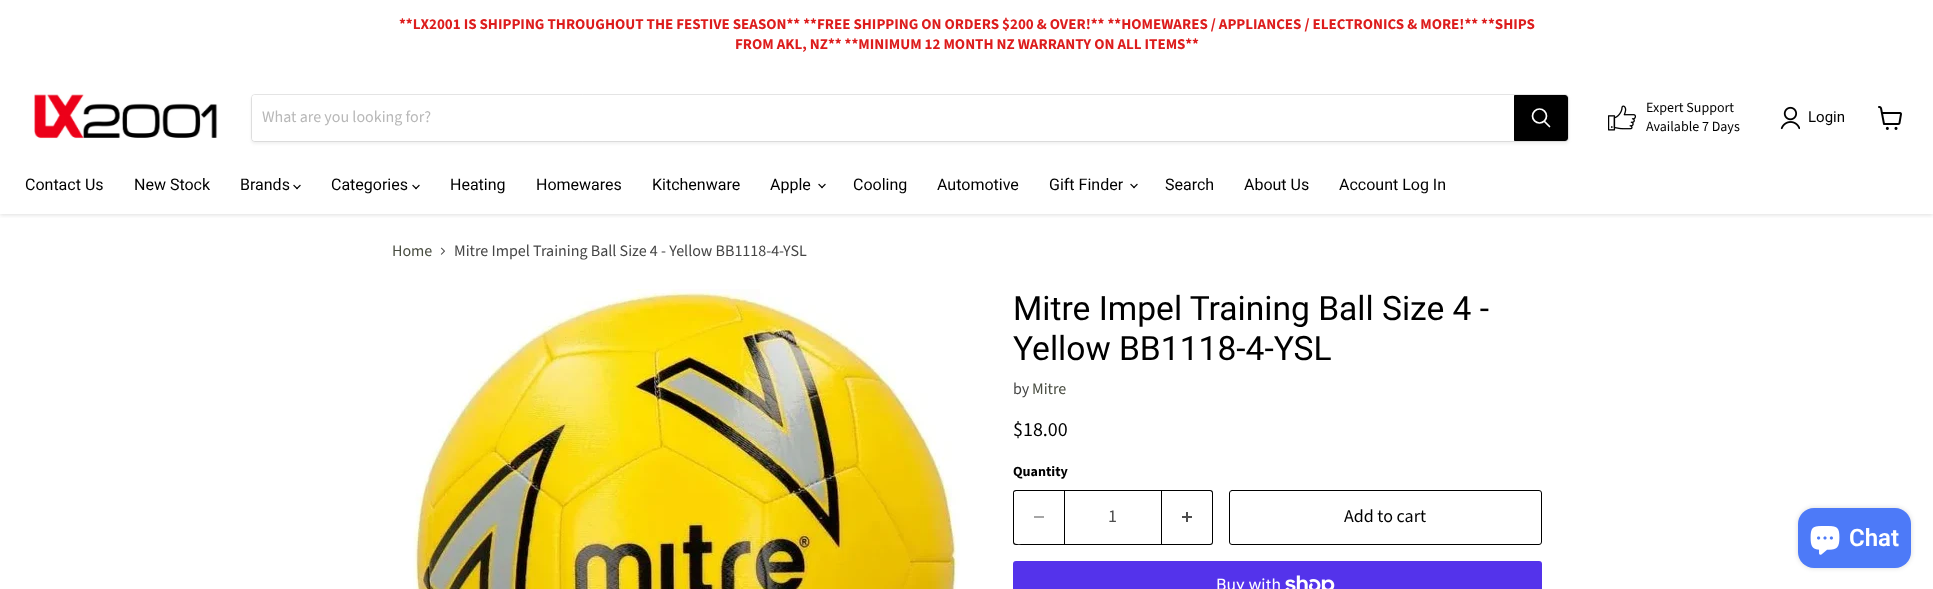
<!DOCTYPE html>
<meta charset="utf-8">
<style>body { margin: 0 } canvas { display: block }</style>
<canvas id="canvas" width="1933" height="589"></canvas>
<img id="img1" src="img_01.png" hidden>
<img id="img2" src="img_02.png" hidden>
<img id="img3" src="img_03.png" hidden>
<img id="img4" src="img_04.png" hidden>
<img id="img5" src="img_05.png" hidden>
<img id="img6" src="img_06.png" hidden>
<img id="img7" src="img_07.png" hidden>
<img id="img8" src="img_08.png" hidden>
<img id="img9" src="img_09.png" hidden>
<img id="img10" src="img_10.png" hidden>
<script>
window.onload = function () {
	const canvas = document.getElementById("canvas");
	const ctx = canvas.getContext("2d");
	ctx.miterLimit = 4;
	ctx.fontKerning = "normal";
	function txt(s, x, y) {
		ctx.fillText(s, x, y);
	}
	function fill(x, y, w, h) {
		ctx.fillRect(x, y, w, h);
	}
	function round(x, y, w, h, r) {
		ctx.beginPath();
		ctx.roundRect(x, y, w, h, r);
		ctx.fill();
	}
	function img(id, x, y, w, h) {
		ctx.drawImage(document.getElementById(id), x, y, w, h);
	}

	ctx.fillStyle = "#FFFFFF";
	fill(0, 0, 1933, 589);
	ctx.save();
	ctx.beginPath();
	ctx.rect(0, 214, 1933, 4);
	ctx.clip();
	ctx.fillStyle = "rgba(128, 128, 128, 0.25)";
	ctx.filter = "blur(2px)";
	ctx.beginPath();
	ctx.rect(0, 70, 1933, 145);
	ctx.fill();
	ctx.filter = "none";
	ctx.restore();
	fill(0, 67, 1933, 2);
	img("img1", 34, 92, 184, 47);
	ctx.fillStyle = "rgba(128, 128, 128, 0.11)";
	ctx.filter = "blur(1.5px)";
	ctx.beginPath();
	ctx.roundRect(251, 96, 1318, 48, 4);
	ctx.fill();
	ctx.filter = "none";
	ctx.beginPath();
	ctx.roundRect(251.5, 94.5, 1317, 47, 3.5);
	ctx.strokeStyle = "rgba(128, 128, 128, 0.2)";
	ctx.stroke();
	ctx.fillStyle = "#FFFFFF";
	ctx.beginPath();
	ctx.roundRect(252, 95, 1262, 46, [3, 0, 0, 3]);
	ctx.fill();
	ctx.fillStyle = "#000000";
	ctx.beginPath();
	ctx.roundRect(1514.5, 95.5, 53, 45, [0, 2.5, 2.5, 0]);
	ctx.fill();
	ctx.strokeStyle = "#000000";
	ctx.stroke();
	ctx.beginPath();
	ctx.moveTo(1549.5, 126.5);
	ctx.lineTo(1544.5, 121.5);
	ctx.strokeStyle = "#FFFFFF";
	ctx.lineWidth = 1.7;
	ctx.lineCap = "round";
	ctx.stroke();
	ctx.beginPath();
	ctx.arc(1539.5, 116, 7, 0, Math.PI * 2);
	ctx.stroke();
	img("img2", 1608, 105, 28, 26);
	img("img3", 1780, 106, 20, 24);
	img("img4", 1878, 106, 24, 24);
	img("img5", 293, 184, 8, 6);
	img("img5", 412, 184, 8, 6);
	img("img5", 818, 183, 8, 6);
	img("img5", 1130, 183, 8, 6);
	img("img6", 440, 247, 5, 8);
	img("img7", 413, 289, 547, 300);
	ctx.beginPath();
	ctx.moveTo(1016, 490);
	ctx.lineTo(1064, 490);
	ctx.lineTo(1064, 545);
	ctx.lineTo(1016, 545);
	ctx.bezierCurveTo(1014, 545, 1013, 544, 1013, 542);
	ctx.lineTo(1013, 493);
	ctx.bezierCurveTo(1013, 491, 1014, 490, 1016, 490);
	ctx.closePath();
	ctx.moveTo(1016, 491);
	ctx.lineTo(1064, 491);
	ctx.lineTo(1064, 544);
	ctx.lineTo(1024, 544);
	ctx.bezierCurveTo(1020, 544, 1014, 545, 1014, 542);
	ctx.lineTo(1014, 492);
	ctx.closePath();
	ctx.fill("evenodd");
	ctx.fillStyle = "#A6A6A6";
	fill(1034, 516, 10, 2);
	ctx.strokeStyle = "#000000";
	ctx.lineWidth = 1;
	ctx.strokeRect(1064.5, 490.5, 97, 54);
	ctx.fillStyle = "#000000";
	ctx.beginPath();
	ctx.moveTo(1162, 490);
	ctx.lineTo(1210, 490);
	ctx.bezierCurveTo(1212, 490, 1213, 491, 1213, 493);
	ctx.lineTo(1213, 542);
	ctx.bezierCurveTo(1213, 544, 1212, 545, 1210, 545);
	ctx.lineTo(1162, 545);
	ctx.closePath();
	ctx.moveTo(1162, 491);
	ctx.lineTo(1210, 491);
	ctx.bezierCurveTo(1211, 491, 1212, 492, 1212, 493);
	ctx.lineTo(1212, 542);
	ctx.bezierCurveTo(1212, 543, 1211, 544, 1210, 544);
	ctx.lineTo(1162, 544);
	ctx.closePath();
	ctx.fill("evenodd");
	img("img8", 1182, 512, 10, 10);
	ctx.beginPath();
	ctx.roundRect(1229.5, 490.5, 312, 54, 2.5);
	ctx.stroke();
	ctx.fillStyle = "#5433EB";
	round(1013, 561, 529, 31, 3);
	img("img9", 1285, 575, 50, 14);
	ctx.fillStyle = "rgba(0, 0, 0, 0.15)";
	ctx.filter = "blur(2.5px)";
	ctx.beginPath();
	ctx.roundRect(1798, 508, 113, 60, 16);
	ctx.fill();
	ctx.filter = "none";
	ctx.fillStyle = "#4D7AF8";
	round(1798, 508, 113, 60, 16);
	img("img10", 1810, 526, 30, 29);
	ctx.font = "bold 15px Source Sans Pro";
	ctx.fillStyle = "#DD1D1D";
	txt("**LX2001 IS SHIPPING THROUGHOUT THE FESTIVE SEASON** **FREE SHIPPING ON ORDERS $200 & OVER!** **HOMEWARES / APPLIANCES / ELECTRONICS & MORE!** **SHIPS", 399, 29);
	txt("FROM AKL, NZ** **MINIMUM 12 MONTH NZ WARRANTY ON ALL ITEMS**", 735, 49);
	ctx.font = "16px Source Sans Pro";
	ctx.fillStyle = "#B8B8B8";
	txt("What are you looking for?", 262, 122);
	ctx.font = "14px Source Sans Pro";
	ctx.fillStyle = "#000000";
	txt("Expert Support", 1646, 112);
	txt("Available 7 Days", 1646, 131);
	ctx.font = "15px Roboto";
	txt("Login", 1808, 122);
	ctx.font = "16px Roboto";
	txt("Contact Us", 25, 190);
	txt("New Stock", 134, 190);
	txt("Brands", 240, 190);
	txt("Categories", 331, 190);
	txt("Heating", 450, 190);
	txt("Homewares", 536, 190);
	txt("Kitchenware", 652, 190);
	txt("Apple", 770, 190);
	txt("Cooling", 853, 190);
	txt("Automotive", 937, 190);
	txt("Gift Finder", 1049, 190);
	txt("Search", 1165, 190);
	txt("About Us", 1244, 190);
	txt("Account Log In", 1339, 190);
	ctx.font = "16px Source Sans Pro";
	ctx.fillStyle = "#494D41";
	txt("Home", 392, 256);
	ctx.fillStyle = "#464646";
	txt("Mitre Impel Training Ball Size 4 - Yellow BB1118-4-YSL", 454, 256);
	ctx.font = "33.6px Roboto";
	ctx.fillStyle = "#000000";
	txt("Mitre Impel Training Ball Size 4 -", 1013, 320);
	txt("Yellow BB1118-4-YSL", 1013, 360);
	ctx.font = "16px Source Sans Pro";
	ctx.fillStyle = "#464646";
	txt("by", 1013, 394);
	ctx.fillStyle = "#494D41";
	txt("Mitre", 1032, 394);
	ctx.font = "20px Source Sans Pro";
	ctx.fillStyle = "#000000";
	txt("$18.00", 1013, 436);
	ctx.font = "bold 14px Source Sans Pro";
	txt("Quantity", 1013, 476);
	ctx.font = "18px Source Sans Pro";
	ctx.fillStyle = "#4D4D4D";
	txt("1", 1108, 522);
	ctx.fillStyle = "#000000";
	txt("Add to cart", 1344, 522);
	ctx.font = "16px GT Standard";
	ctx.fillStyle = "#FFFFFF";
	txt("Buy with", 1216, 590);
	ctx.font = "600 24px Roboto";
	txt("Chat", 1849, 546);
};
</script>
